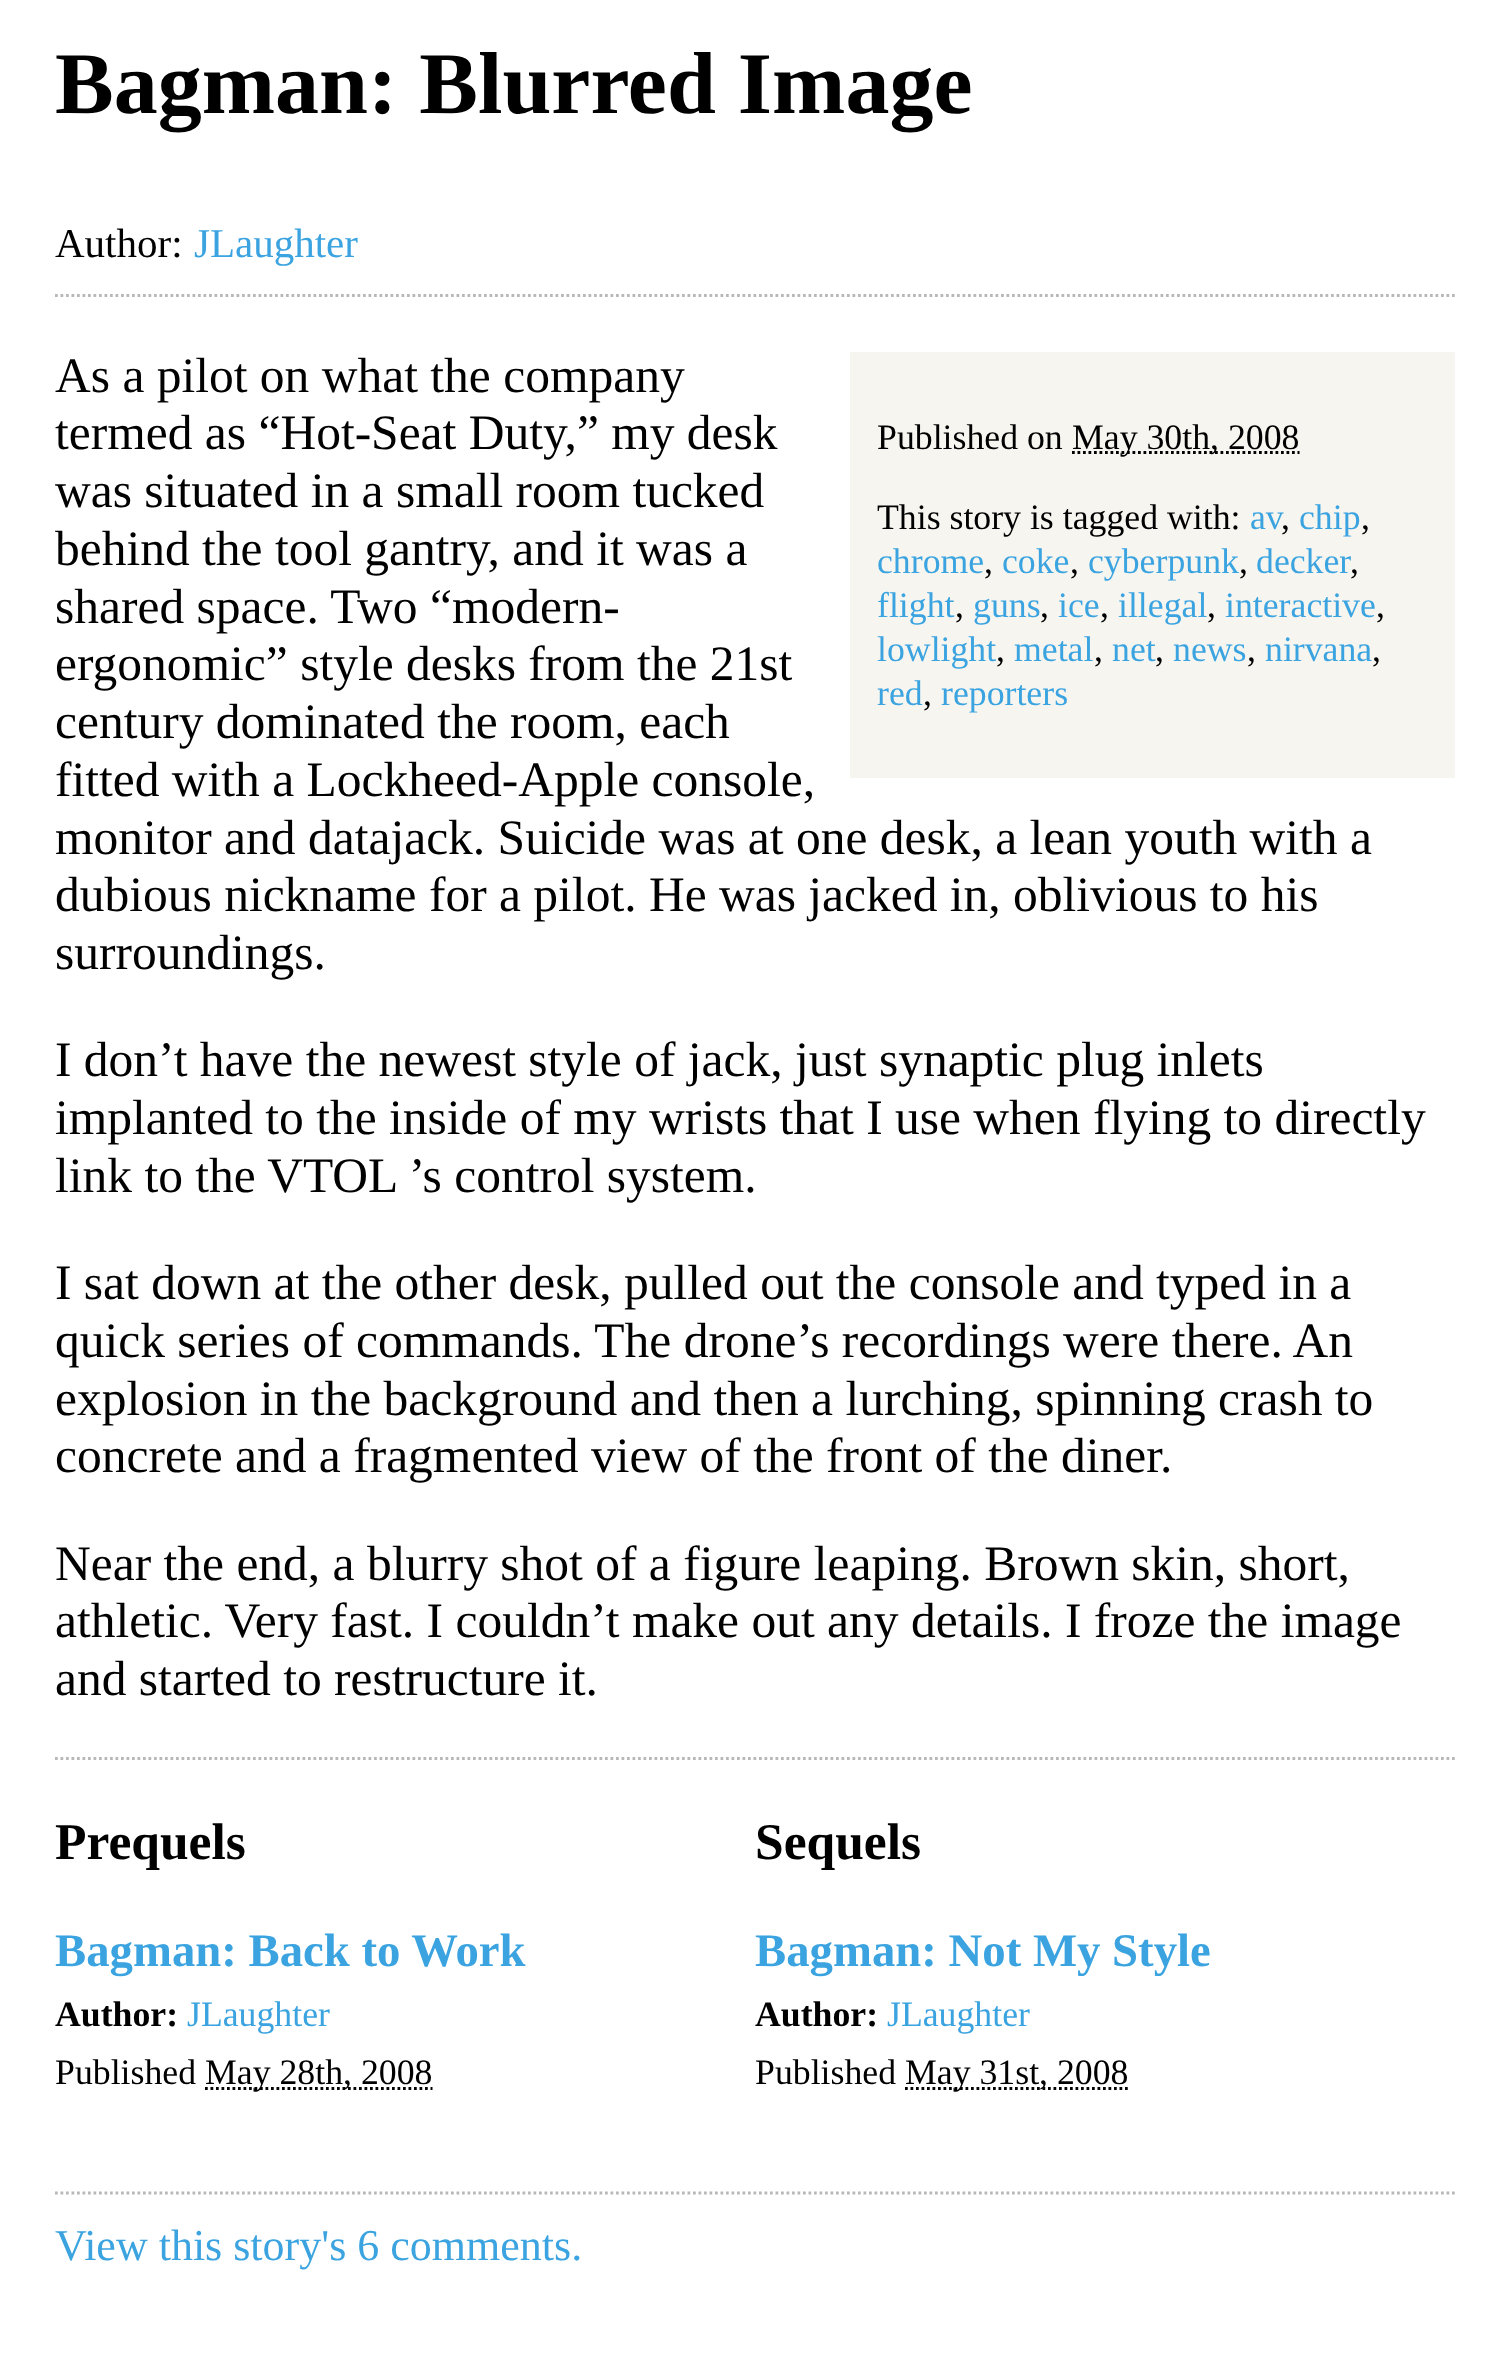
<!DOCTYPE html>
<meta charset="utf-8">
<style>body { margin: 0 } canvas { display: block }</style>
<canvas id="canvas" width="1508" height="2364"></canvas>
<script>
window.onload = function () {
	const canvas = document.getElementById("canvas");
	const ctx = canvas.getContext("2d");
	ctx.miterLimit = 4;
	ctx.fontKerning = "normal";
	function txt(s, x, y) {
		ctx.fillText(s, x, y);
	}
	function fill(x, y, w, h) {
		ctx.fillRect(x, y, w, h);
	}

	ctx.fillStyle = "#FFFFFF";
	fill(0, 0, 1508, 2364);
	ctx.beginPath();
	ctx.moveTo(55, 295.5);
	ctx.lineTo(1455, 295.5);
	ctx.strokeStyle = "#B8B8B8";
	ctx.lineWidth = 2.8;
	ctx.setLineDash([2.75, 2.75]);
	ctx.stroke();
	ctx.beginPath();
	ctx.moveTo(55, 1758.5);
	ctx.lineTo(1455, 1758.5);
	ctx.stroke();
	ctx.fillStyle = "#F6F5F0";
	fill(850, 352, 605, 426);
	ctx.beginPath();
	ctx.moveTo(1072, 452.5);
	ctx.lineTo(1299.5, 452.5);
	ctx.strokeStyle = "#000000";
	ctx.stroke();
	ctx.beginPath();
	ctx.moveTo(55, 2193);
	ctx.lineTo(1455, 2193);
	ctx.strokeStyle = "#B8B8B8";
	ctx.stroke();
	ctx.beginPath();
	ctx.moveTo(205, 2088.5);
	ctx.lineTo(432.5, 2088.5);
	ctx.strokeStyle = "#000000";
	ctx.stroke();
	ctx.beginPath();
	ctx.moveTo(905, 2088.5);
	ctx.lineTo(1128.5, 2088.5);
	ctx.stroke();
	ctx.font = "bold 88px Liberation Serif";
	ctx.fillStyle = "#000000";
	txt("Bagman: Blurred Image", 55, 113);
	ctx.font = "41px Liberation Serif";
	txt("Author:", 55, 257);
	ctx.fillStyle = "#3BA4E0";
	txt("JLaughter", 194, 257);
	ctx.font = "49.5px Liberation Serif";
	ctx.fillStyle = "#000000";
	txt("As a pilot on what the company", 55, 392);
	txt("termed as “Hot-Seat Duty,” my desk", 55, 449);
	txt("was situated in a small room tucked", 55, 507);
	txt("behind the tool gantry, and it was a", 55, 565);
	txt("shared space. Two “modern-", 55, 623);
	txt("ergonomic” style desks from the 21st", 55, 680);
	txt("century dominated the room, each", 55, 738);
	txt("fitted with a Lockheed-Apple console,", 55, 796);
	txt("monitor and datajack. Suicide was at one desk, a lean youth with a", 55, 854);
	txt("dubious nickname for a pilot. He was jacked in, oblivious to his", 55, 911);
	txt("surroundings.", 55, 969);
	txt("I don’t have the newest style of jack, just synaptic plug inlets", 55, 1076);
	txt("implanted to the inside of my wrists that I use when flying to directly", 55, 1134);
	txt("link to the VTOL ’s control system.", 55, 1192);
	txt("I sat down at the other desk, pulled out the console and typed in a", 55, 1299);
	txt("quick series of commands. The drone’s recordings were there. An", 55, 1357);
	txt("explosion in the background and then a lurching, spinning crash to", 55, 1415);
	txt("concrete and a fragmented view of the front of the diner.", 55, 1472);
	txt("Near the end, a blurry shot of a figure leaping. Brown skin, short,", 55, 1580);
	txt("athletic. Very fast. I couldn’t make out any details. I froze the image", 55, 1637);
	txt("and started to restructure it.", 55, 1695);
	ctx.font = "35.75px Liberation Serif";
	txt("Published on", 877, 449);
	txt("May 30th, 2008", 1072, 449);
	txt("This story is tagged with:", 877, 529);
	ctx.fillStyle = "#3BA4E0";
	txt("av", 1250, 529);
	ctx.fillStyle = "#000000";
	txt(",", 1281, 529);
	ctx.fillStyle = "#3BA4E0";
	txt("chip", 1299, 529);
	ctx.fillStyle = "#000000";
	txt(",", 1361, 529);
	ctx.fillStyle = "#3BA4E0";
	txt("chrome", 877, 573);
	ctx.fillStyle = "#000000";
	txt(",", 984, 573);
	ctx.fillStyle = "#3BA4E0";
	txt("coke", 1002, 573);
	ctx.fillStyle = "#000000";
	txt(",", 1070, 573);
	ctx.fillStyle = "#3BA4E0";
	txt("cyberpunk", 1088, 573);
	ctx.fillStyle = "#000000";
	txt(",", 1239, 573);
	ctx.fillStyle = "#3BA4E0";
	txt("decker", 1256, 573);
	ctx.fillStyle = "#000000";
	txt(",", 1350, 573);
	ctx.fillStyle = "#3BA4E0";
	txt("flight", 877, 617);
	ctx.fillStyle = "#000000";
	txt(",", 955, 617);
	ctx.fillStyle = "#3BA4E0";
	txt("guns", 973, 617);
	ctx.fillStyle = "#000000";
	txt(",", 1040, 617);
	ctx.fillStyle = "#3BA4E0";
	txt("ice", 1058, 617);
	ctx.fillStyle = "#000000";
	txt(",", 1100, 617);
	ctx.fillStyle = "#3BA4E0";
	txt("illegal", 1118, 617);
	ctx.fillStyle = "#000000";
	txt(",", 1207, 617);
	ctx.fillStyle = "#3BA4E0";
	txt("interactive", 1225, 617);
	ctx.fillStyle = "#000000";
	txt(",", 1376, 617);
	ctx.fillStyle = "#3BA4E0";
	txt("lowlight", 877, 661);
	ctx.fillStyle = "#000000";
	txt(",", 996, 661);
	ctx.fillStyle = "#3BA4E0";
	txt("metal", 1014, 661);
	ctx.fillStyle = "#000000";
	txt(",", 1094, 661);
	ctx.fillStyle = "#3BA4E0";
	txt("net", 1112, 661);
	ctx.fillStyle = "#000000";
	txt(",", 1155, 661);
	ctx.fillStyle = "#3BA4E0";
	txt("news", 1173, 661);
	ctx.fillStyle = "#000000";
	txt(",", 1247, 661);
	ctx.fillStyle = "#3BA4E0";
	txt("nirvana", 1265, 661);
	ctx.fillStyle = "#000000";
	txt(",", 1372, 661);
	ctx.fillStyle = "#3BA4E0";
	txt("red", 877, 705);
	ctx.fillStyle = "#000000";
	txt(",", 923, 705);
	ctx.fillStyle = "#3BA4E0";
	txt("reporters", 941, 705);
	ctx.font = "bold 51.5px Liberation Serif";
	ctx.fillStyle = "#000000";
	txt("Prequels", 55, 1859);
	ctx.font = "bold 46.75px Liberation Serif";
	ctx.fillStyle = "#3BA4E0";
	txt("Bagman: Back to Work", 55, 1966);
	ctx.font = "bold 35.75px Liberation Serif";
	ctx.fillStyle = "#000000";
	txt("Author:", 55, 2026);
	ctx.font = "35.75px Liberation Serif";
	ctx.fillStyle = "#3BA4E0";
	txt("JLaughter", 187, 2026);
	ctx.fillStyle = "#000000";
	txt("Published", 55, 2084);
	txt("May 28th, 2008", 205, 2084);
	ctx.font = "bold 51.5px Liberation Serif";
	txt("Sequels", 755, 1859);
	ctx.font = "bold 46.75px Liberation Serif";
	ctx.fillStyle = "#3BA4E0";
	txt("Bagman: Not My Style", 755, 1966);
	ctx.font = "bold 35.75px Liberation Serif";
	ctx.fillStyle = "#000000";
	txt("Author:", 755, 2026);
	ctx.font = "35.75px Liberation Serif";
	ctx.fillStyle = "#3BA4E0";
	txt("JLaughter", 887, 2026);
	ctx.fillStyle = "#000000";
	txt("Published", 755, 2084);
	txt("May 31st, 2008", 905, 2084);
	ctx.font = "44px Liberation Serif";
	ctx.fillStyle = "#3BA4E0";
	txt("View this story's 6 comments.", 55, 2260);
};
</script>
